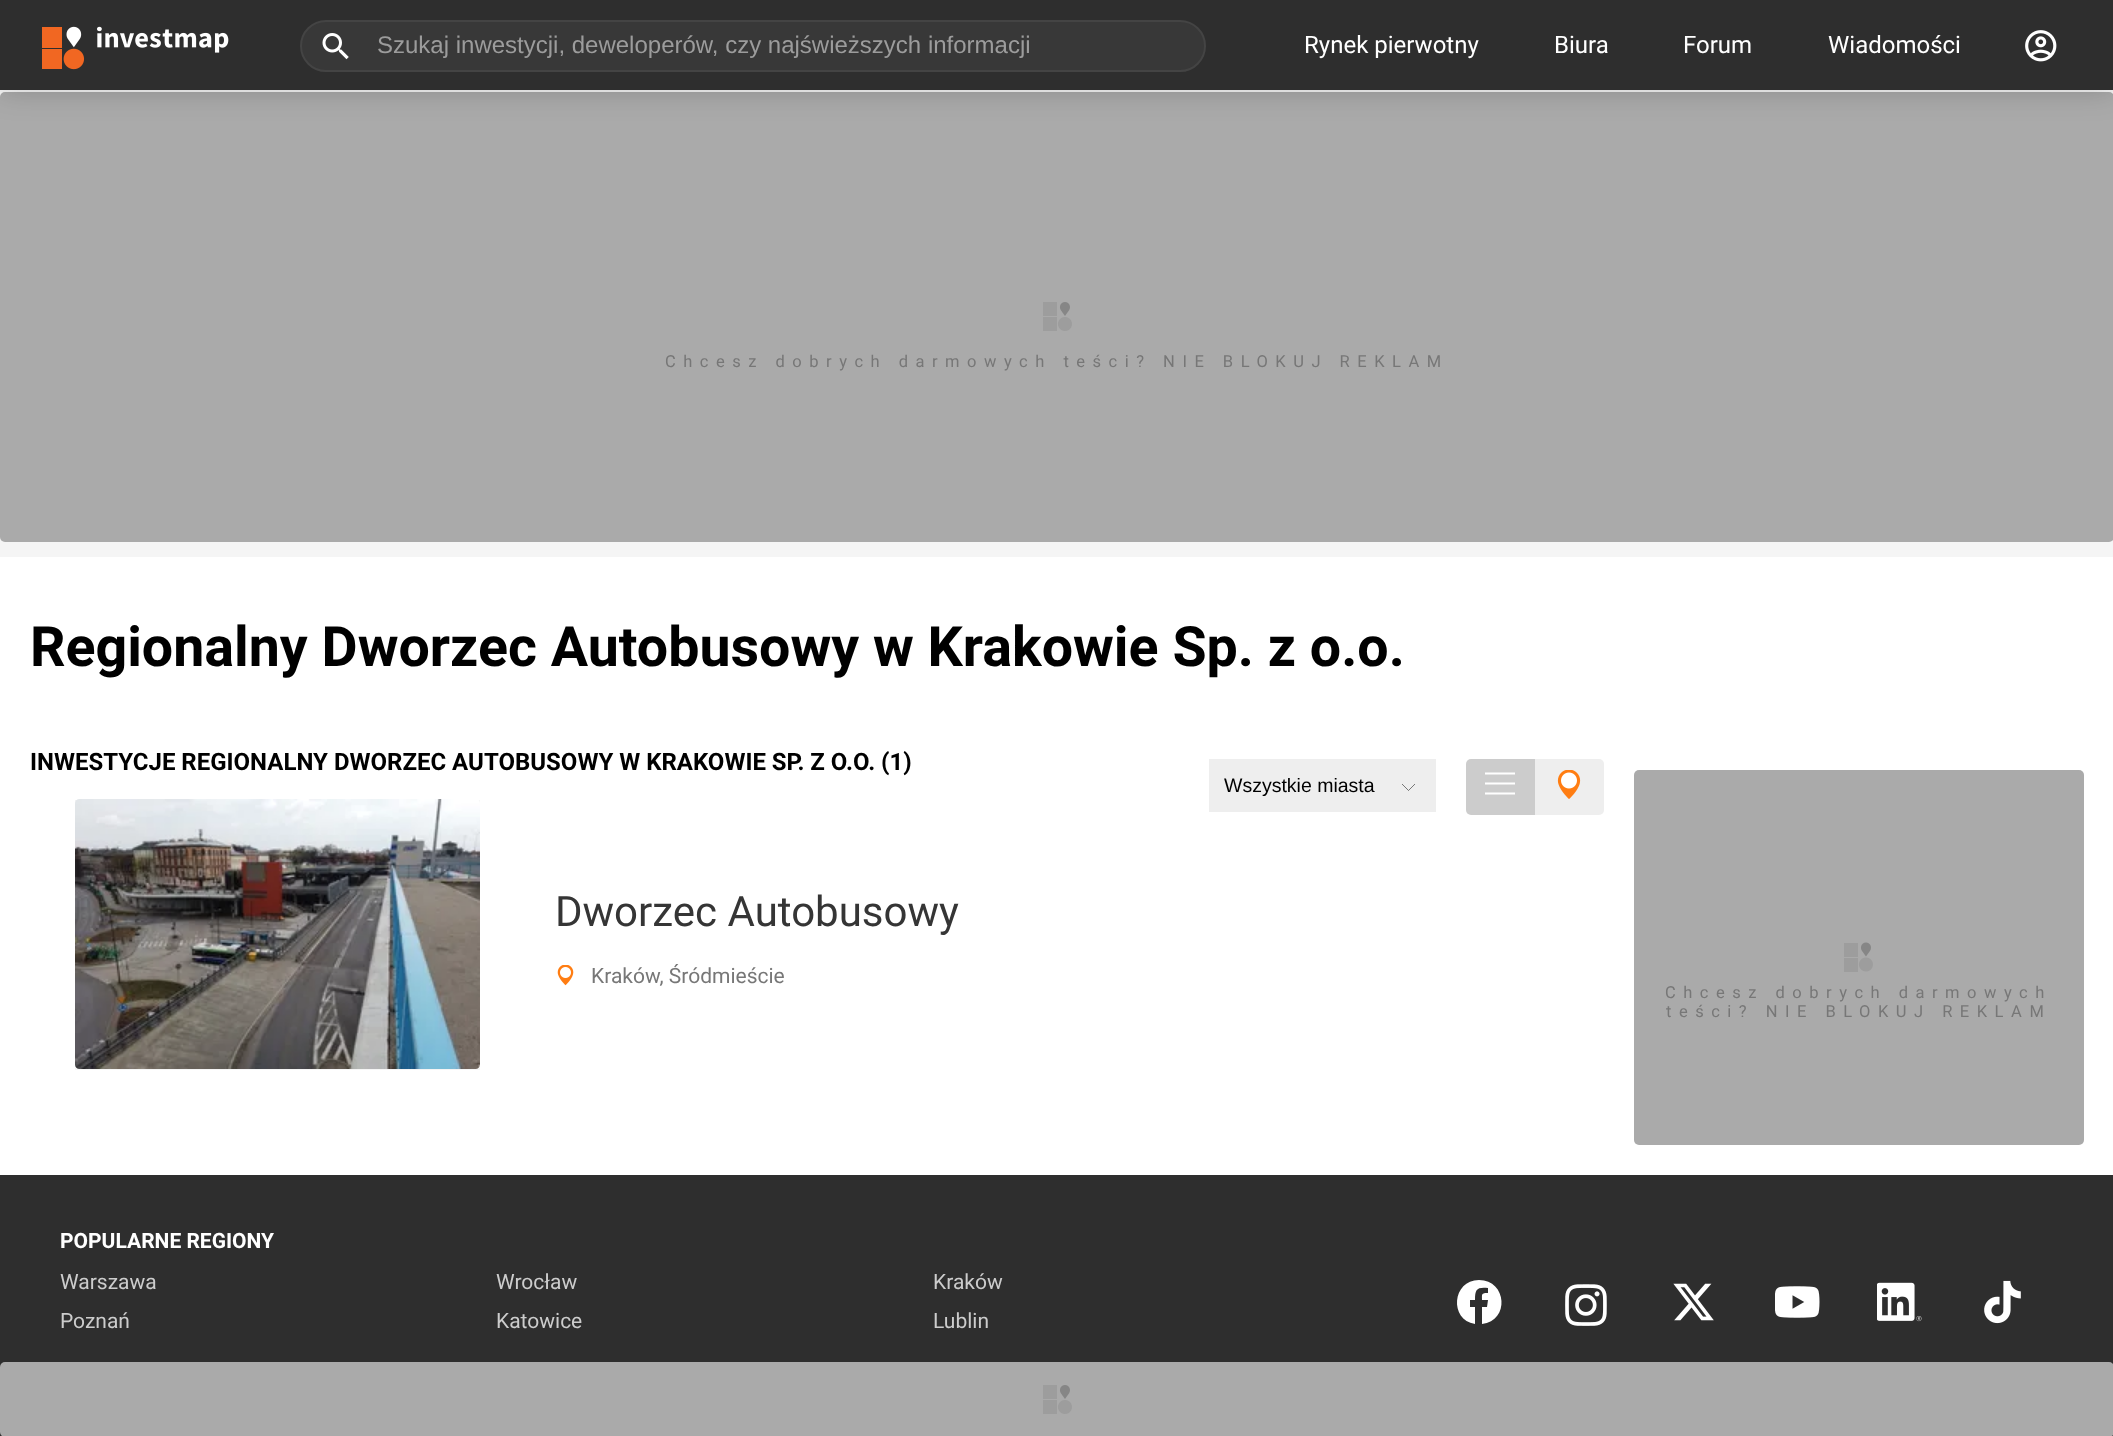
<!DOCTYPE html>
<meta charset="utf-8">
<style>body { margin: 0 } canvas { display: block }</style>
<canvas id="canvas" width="2113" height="1436"></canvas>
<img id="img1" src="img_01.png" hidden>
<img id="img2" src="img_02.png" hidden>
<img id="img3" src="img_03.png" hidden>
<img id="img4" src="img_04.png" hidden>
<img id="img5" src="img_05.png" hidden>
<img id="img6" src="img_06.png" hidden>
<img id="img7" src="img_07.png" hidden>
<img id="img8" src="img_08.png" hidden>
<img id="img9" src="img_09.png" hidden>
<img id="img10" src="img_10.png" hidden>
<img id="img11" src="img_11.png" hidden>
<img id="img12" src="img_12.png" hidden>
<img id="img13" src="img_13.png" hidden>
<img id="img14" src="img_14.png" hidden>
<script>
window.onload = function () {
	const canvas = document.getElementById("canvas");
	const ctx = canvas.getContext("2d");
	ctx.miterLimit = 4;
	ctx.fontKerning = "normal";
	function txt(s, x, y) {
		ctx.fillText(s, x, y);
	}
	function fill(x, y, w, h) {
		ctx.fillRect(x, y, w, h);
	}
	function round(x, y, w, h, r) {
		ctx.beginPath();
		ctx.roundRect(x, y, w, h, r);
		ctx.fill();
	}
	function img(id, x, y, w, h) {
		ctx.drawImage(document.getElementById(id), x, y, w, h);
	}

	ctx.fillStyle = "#FFFFFF";
	fill(0, 0, 2113, 1436);
	ctx.fillStyle = "#F5F5F5";
	fill(0, 90, 2113, 467);
	ctx.fillStyle = "#AAAAAA";
	round(0, 92, 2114, 450, 5);
	ctx.fillStyle = "rgba(0, 0, 0, 0.2)";
	ctx.filter = "blur(15px)";
	ctx.beginPath();
	ctx.rect(0, 0, 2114, 90);
	ctx.fill();
	ctx.filter = "none";
	ctx.fillStyle = "#2E2E2E";
	fill(0, 0, 2113, 90);
	img("img1", 42, 26, 187, 44);
	ctx.fillStyle = "#383838";
	ctx.beginPath();
	ctx.roundRect(301, 21, 904, 50, 25);
	ctx.fill();
	ctx.strokeStyle = "#444444";
	ctx.lineWidth = 2;
	ctx.stroke();
	img("img2", 322, 33, 27, 27);
	img("img3", 2025, 30, 32, 32);
	img("img4", 1043, 302, 29, 29);
	ctx.fillStyle = "#EEEEEE";
	fill(1209, 759, 227, 53);
	ctx.beginPath();
	ctx.moveTo(1402, 784);
	ctx.lineTo(1408.5, 790.5);
	ctx.lineTo(1415, 784);
	ctx.strokeStyle = "#000000";
	ctx.lineWidth = 0.5;
	ctx.stroke();
	ctx.fillStyle = "#CCCCCC";
	ctx.beginPath();
	ctx.roundRect(1466, 759, 69, 56, [5, 0, 0, 5]);
	ctx.fill();
	img("img5", 1485, 772, 30, 23);
	ctx.fillStyle = "#EEEEEE";
	ctx.beginPath();
	ctx.roundRect(1535, 759, 69, 56, [0, 5, 5, 0]);
	ctx.fill();
	img("img6", 1557, 770, 24, 29);
	ctx.fillStyle = "#F5F5F5";
	fill(75, 800, 405, 270);
	img("img7", 75, 799, 405, 270);
	img("img8", 557, 965, 17, 21);
	ctx.fillStyle = "#AAAAAA";
	round(1634, 770, 450, 375, 5);
	img("img9", 1844, 942, 29, 30);
	ctx.fillStyle = "#2E2E2E";
	fill(0, 1175, 2113, 261);
	ctx.fillStyle = "#FFFFFF";
	ctx.beginPath();
	ctx.moveTo(1479, 1280);
	ctx.bezierCurveTo(1452, 1280, 1449, 1320, 1475, 1324);
	ctx.lineTo(1475, 1307);
	ctx.lineTo(1470, 1307);
	ctx.lineTo(1470, 1300);
	ctx.lineTo(1475, 1300);
	ctx.bezierCurveTo(1475, 1289, 1477, 1287, 1488, 1288);
	ctx.lineTo(1488, 1293);
	ctx.bezierCurveTo(1481, 1293, 1482, 1294, 1482, 1300);
	ctx.lineTo(1488, 1300);
	ctx.lineTo(1487, 1307);
	ctx.lineTo(1482, 1307);
	ctx.lineTo(1482, 1324);
	ctx.bezierCurveTo(1510, 1321, 1507, 1280, 1479, 1280);
	ctx.fill();
	img("img10", 1565, 1284, 42, 42);
	img("img11", 1673, 1283, 41, 38);
	img("img12", 1775, 1286, 45, 32);
	img("img13", 1877, 1282, 45, 40);
	img("img14", 1984, 1280, 37, 44);
	ctx.fillStyle = "#AAAAAA";
	round(0, 1362, 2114, 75, 5);
	img("img4", 1043, 1385, 29, 29);
	ctx.font = "24px Liberation Sans";
	ctx.fillStyle = "#9C9C9C";
	txt("Szukaj inwestycji, deweloperów, czy najświeższych informacji", 377, 53);
	ctx.font = "24px Roboto";
	ctx.fillStyle = "#FFFFFF";
	txt("Rynek pierwotny", 1304, 53);
	txt("Biura", 1554, 53);
	txt("Forum", 1683, 53);
	txt("Wiadomości", 1828, 53);
	ctx.letterSpacing = "7.5px";
	ctx.font = "16.5px Roboto";
	ctx.fillStyle = "#777777";
	txt("Chcesz dobrych darmowych teści? NIE BLOKUJ REKLAM", 665, 367);
	ctx.letterSpacing = "0px";
	ctx.font = "bold 55.5px Roboto";
	ctx.fillStyle = "#000000";
	txt("Regionalny Dworzec Autobusowy w Krakowie Sp. z o.o.", 30, 666);
	ctx.font = "bold 24px Roboto";
	txt("INWESTYCJE REGIONALNY DWORZEC AUTOBUSOWY W KRAKOWIE SP. Z O.O. (1)", 30, 770);
	ctx.font = "19.5px Liberation Sans";
	txt("Wszystkie miasta", 1224, 792);
	ctx.font = "42px Roboto";
	ctx.fillStyle = "#353535";
	txt("Dworzec Autobusowy", 555, 926);
	ctx.font = "21px Roboto";
	ctx.fillStyle = "#777777";
	txt("Kraków, Śródmieście", 591, 983);
	ctx.letterSpacing = "7.5px";
	ctx.font = "16.5px Roboto";
	txt("Chcesz dobrych darmowych", 1665, 998);
	txt("teści? NIE BLOKUJ REKLAM", 1666, 1017);
	ctx.letterSpacing = "0px";
	ctx.font = "bold 21px Roboto";
	ctx.fillStyle = "#FFFFFF";
	txt("POPULARNE REGIONY", 60, 1248);
	ctx.font = "21px Roboto";
	ctx.fillStyle = "#CCCCCC";
	txt("Warszawa", 60, 1289);
	txt("Wrocław", 496, 1289);
	txt("Kraków", 933, 1289);
	txt("Poznań", 60, 1328);
	txt("Katowice", 496, 1328);
	txt("Lublin", 933, 1328);
};
</script>
